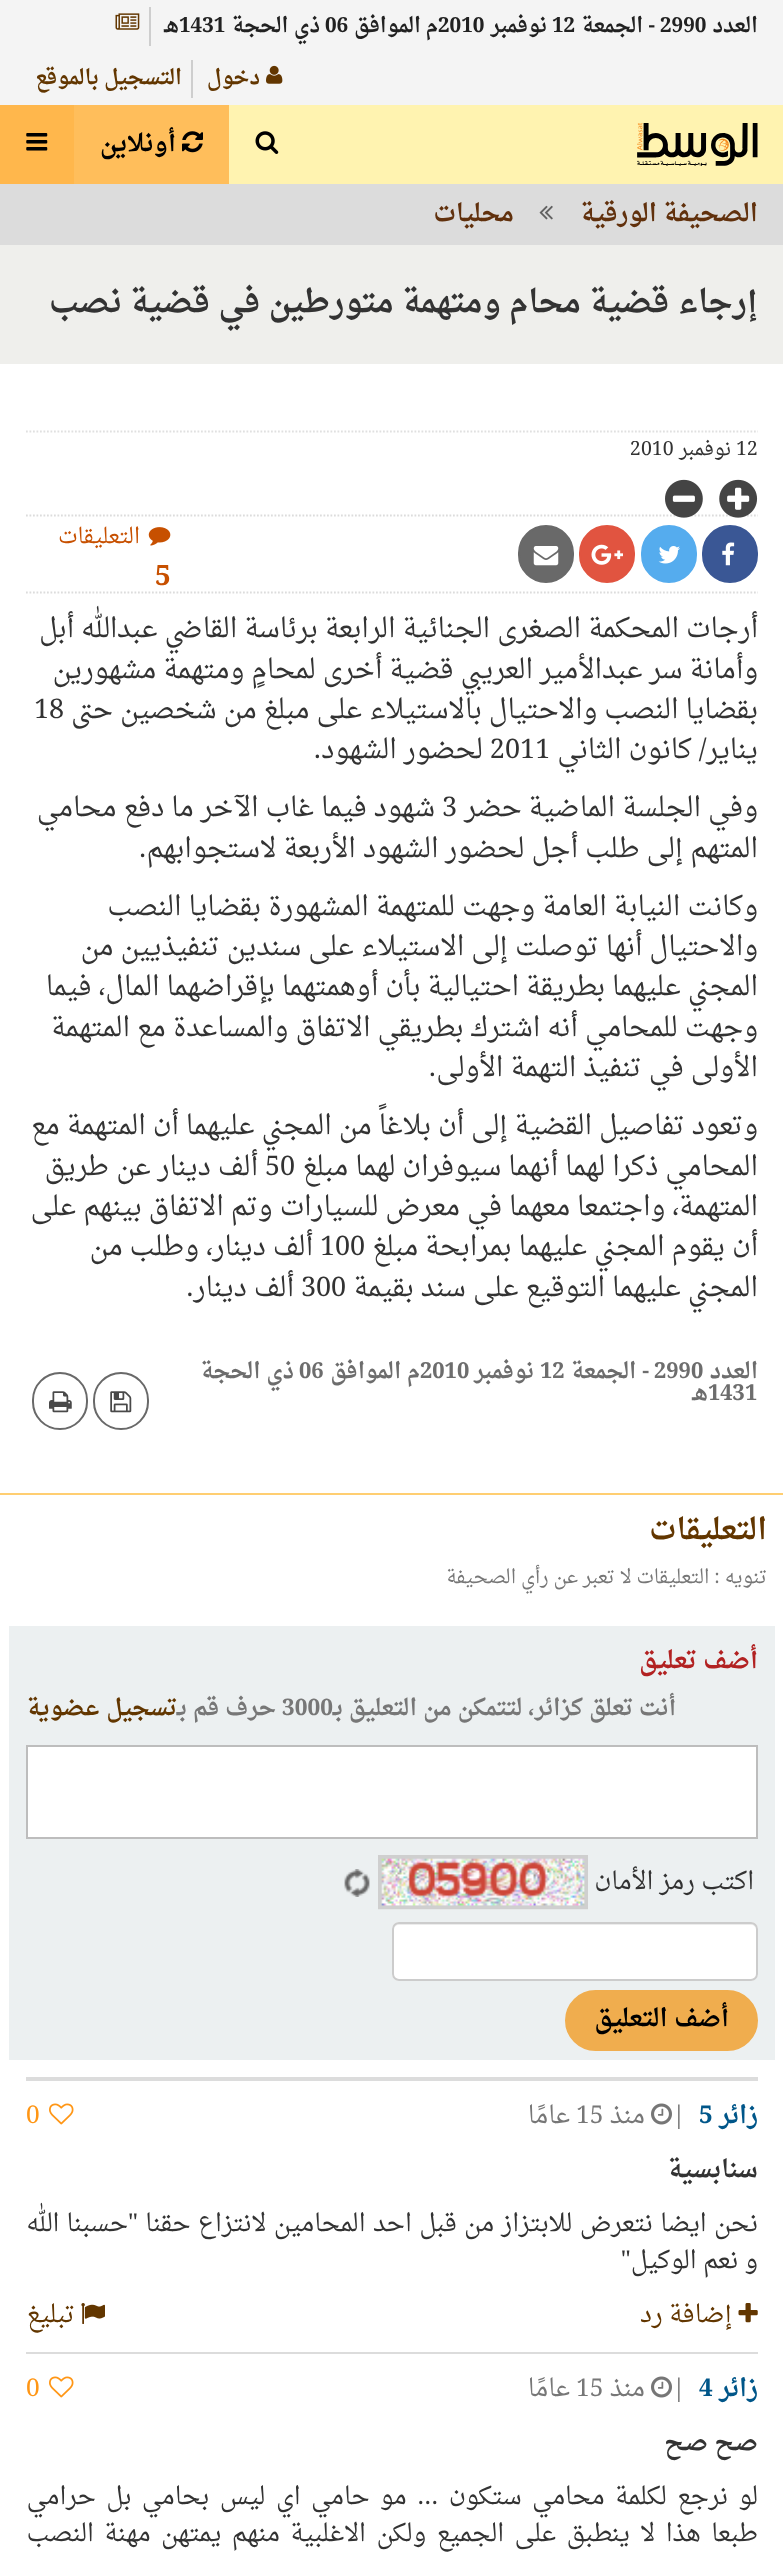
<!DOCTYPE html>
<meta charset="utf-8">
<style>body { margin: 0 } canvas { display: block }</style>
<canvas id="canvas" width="783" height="2552"></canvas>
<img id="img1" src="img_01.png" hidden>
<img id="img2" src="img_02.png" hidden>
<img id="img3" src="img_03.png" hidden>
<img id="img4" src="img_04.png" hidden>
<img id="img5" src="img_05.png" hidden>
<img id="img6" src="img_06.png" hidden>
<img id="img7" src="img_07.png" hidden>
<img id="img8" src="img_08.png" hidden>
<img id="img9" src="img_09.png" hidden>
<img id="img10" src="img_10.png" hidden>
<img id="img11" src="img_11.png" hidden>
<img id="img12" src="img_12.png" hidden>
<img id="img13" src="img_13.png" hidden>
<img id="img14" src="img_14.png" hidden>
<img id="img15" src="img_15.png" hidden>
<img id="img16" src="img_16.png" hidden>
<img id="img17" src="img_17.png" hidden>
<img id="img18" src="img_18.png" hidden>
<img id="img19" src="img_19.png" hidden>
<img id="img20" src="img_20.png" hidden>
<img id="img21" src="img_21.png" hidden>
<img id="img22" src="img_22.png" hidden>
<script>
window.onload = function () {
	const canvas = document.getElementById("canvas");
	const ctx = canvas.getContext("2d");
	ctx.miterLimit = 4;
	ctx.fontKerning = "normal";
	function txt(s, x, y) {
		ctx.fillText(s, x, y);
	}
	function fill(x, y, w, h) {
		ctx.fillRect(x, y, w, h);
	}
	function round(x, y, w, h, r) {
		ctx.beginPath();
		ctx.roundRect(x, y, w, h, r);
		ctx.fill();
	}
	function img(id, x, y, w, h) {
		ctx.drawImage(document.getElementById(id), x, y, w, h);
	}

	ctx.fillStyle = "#F4F4F4";
	fill(0, 0, 783, 2552);
	ctx.fillStyle = "#CECECE";
	fill(149, 7, 2, 39);
	img("img1", 115, 13, 25, 17);
	img("img2", 266, 65, 17, 19);
	fill(191, 60, 2, 38);
	ctx.fillStyle = "#FFF3B0";
	fill(229, 105, 554, 79);
	img("img3", 637, 123, 121, 43);
	img("img4", 255, 131, 24, 23);
	ctx.fillStyle = "#FFBE5B";
	fill(74, 105, 155, 79);
	img("img5", 182, 131, 21, 22);
	ctx.fillStyle = "#FFB74C";
	fill(0, 105, 74, 79);
	img("img6", 26, 133, 22, 18);
	ctx.fillStyle = "#DCDCDC";
	fill(0, 184, 783, 61);
	img("img7", 539, 205, 14, 15);
	ctx.fillStyle = "#EFEFEC";
	fill(0, 245, 783, 119);
	ctx.fillStyle = "#FFFFFF";
	fill(0, 364, 783, 1129);
	ctx.beginPath();
	ctx.moveTo(26, 431.5);
	ctx.lineTo(758, 431.5);
	ctx.strokeStyle = "#E0E0E0";
	ctx.lineWidth = 1.8;
	ctx.setLineDash([1.75, 1.75]);
	ctx.stroke();
	ctx.beginPath();
	ctx.moveTo(26, 515.5);
	ctx.lineTo(758, 515.5);
	ctx.strokeStyle = "#DCDCDC";
	ctx.stroke();
	img("img8", 719, 479, 39, 39);
	img("img9", 665, 479, 38, 39);
	ctx.beginPath();
	ctx.moveTo(26, 592.5);
	ctx.lineTo(758, 592.5);
	ctx.stroke();
	ctx.fillStyle = "#3A5795";
	ctx.beginPath();
	ctx.roundRect(703, 526, 54, 56, 27);
	ctx.fill();
	ctx.strokeStyle = "#3A5795";
	ctx.lineWidth = 2;
	ctx.setLineDash([]);
	ctx.stroke();
	img("img10", 722, 542, 13, 24);
	ctx.fillStyle = "#55ACEE";
	ctx.beginPath();
	ctx.roundRect(642, 526, 54, 56, 27);
	ctx.fill();
	ctx.strokeStyle = "#55ACEE";
	ctx.stroke();
	img("img11", 658, 546, 22, 18);
	ctx.fillStyle = "#E15440";
	ctx.beginPath();
	ctx.roundRect(580, 526, 54, 56, 27);
	ctx.fill();
	ctx.strokeStyle = "#E15440";
	ctx.stroke();
	img("img12", 591, 544, 32, 21);
	ctx.fillStyle = "#696969";
	ctx.beginPath();
	ctx.roundRect(519, 526, 54, 56, 27);
	ctx.fill();
	ctx.strokeStyle = "#696969";
	ctx.stroke();
	img("img13", 533, 546, 26, 20);
	img("img14", 148, 527, 23, 19);
	ctx.beginPath();
	ctx.roundRect(94, 1373, 54, 56, 27);
	ctx.stroke();
	img("img15", 110, 1391, 22, 22);
	ctx.beginPath();
	ctx.roundRect(33, 1373, 54, 56, 27);
	ctx.stroke();
	img("img16", 49, 1391, 23, 22);
	ctx.fillStyle = "#FFFFFF";
	fill(0, 1495, 783, 1057);
	ctx.fillStyle = "#FFCE71";
	fill(0, 1493, 783, 2);
	ctx.fillStyle = "#ECF0F1";
	fill(9, 1626, 766, 434);
	ctx.fillStyle = "#FFFFFF";
	ctx.beginPath();
	ctx.rect(27, 1746, 730, 92);
	ctx.fill();
	ctx.strokeStyle = "#BDBDBD";
	ctx.stroke();
	img("img17", 378, 1855, 210, 55);
	img("img18", 344, 1869, 26, 28);
	round(392, 1922, 366, 59, 7);
	ctx.fillStyle = "#ECECEC";
	ctx.beginPath();
	ctx.moveTo(399, 1925);
	ctx.lineTo(751, 1925);
	ctx.bezierCurveTo(754, 1925, 756, 1927, 756, 1930);
	ctx.bezierCurveTo(756, 1927, 755, 1923, 751, 1923);
	ctx.lineTo(399, 1923);
	ctx.bezierCurveTo(395, 1923, 394, 1927, 394, 1930);
	ctx.bezierCurveTo(394, 1927, 396, 1925, 399, 1925);
	ctx.closePath();
	ctx.fill();
	ctx.beginPath();
	ctx.roundRect(393, 1923, 364, 57, 6);
	ctx.strokeStyle = "#CCCCCC";
	ctx.stroke();
	ctx.fillStyle = "#F0AD4E";
	ctx.beginPath();
	ctx.roundRect(574, 1999, 175, 43, 21.5);
	ctx.fill();
	ctx.strokeStyle = "#F0AD4E";
	ctx.lineWidth = 18;
	ctx.stroke();
	ctx.fillStyle = "#DCDCDC";
	fill(26, 2077, 732, 4);
	img("img19", 651, 2103, 21, 22);
	img("img20", 49, 2103, 25, 22);
	img("img21", 738, 2303, 20, 20);
	img("img22", 81, 2303, 24, 21);
	fill(26, 2352, 732, 2);
	img("img19", 651, 2376, 21, 22);
	img("img20", 49, 2376, 25, 22);
	ctx.direction = "rtl";
	ctx.font = "bold 20.75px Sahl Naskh";
	ctx.fillStyle = "#212121";
	txt("العدد", 758, 32);
	ctx.direction = "ltr";
	txt("2990", 660, 32);
	ctx.direction = "rtl";
	txt("- الجمعة", 655, 32);
	ctx.direction = "ltr";
	txt("12", 552, 32);
	ctx.direction = "rtl";
	txt("نوفمبر", 547, 32);
	ctx.direction = "ltr";
	txt("2010", 438, 32);
	ctx.direction = "rtl";
	txt("م", 438, 32);
	txt("الموافق", 421, 32);
	ctx.direction = "ltr";
	txt("06", 325, 32);
	ctx.direction = "rtl";
	txt("ذي الحجة", 320, 32);
	ctx.direction = "ltr";
	txt("1431", 179, 32);
	ctx.direction = "rtl";
	txt("هـ", 179, 32);
	ctx.fillStyle = "#623600";
	txt("دخول", 260, 84);
	txt("التسجيل بالموقع", 182, 84);
	ctx.font = "bold 24.5px Sahl Naskh";
	ctx.fillStyle = "#000000";
	txt("أونلاين", 176, 151);
	ctx.fillStyle = "#61310D";
	txt("الصحيفة الورقية", 758, 221);
	txt("محليات", 514, 221);
	ctx.font = "bold 31.8px Sahl Naskh";
	ctx.fillStyle = "#333333";
	txt("إرجاء قضية محام", 758, 312);
	txt("ومتهمة متورطين في قضية نصب", 501, 312);
	ctx.direction = "ltr";
	ctx.font = "19.5px Sahl Naskh";
	txt("12", 736, 455);
	ctx.direction = "rtl";
	txt("نوفمبر", 731, 455);
	ctx.direction = "ltr";
	txt("2010", 630, 455);
	ctx.direction = "rtl";
	ctx.font = "21.5px Sahl Naskh";
	ctx.fillStyle = "#C75000";
	txt("التعليقات", 140, 543);
	ctx.direction = "ltr";
	ctx.font = "bold 28px Sahl Naskh";
	txt("5", 155, 585);
	ctx.direction = "rtl";
	ctx.font = "26.95px Sahl Naskh";
	ctx.fillStyle = "#333333";
	txt("أرجات المحكمة الصغرى الجنائية الرابعة برئاسة القاضي عبدالله أبل", 758, 637);
	txt("وأمانة سر عبدالأمير العريبي قضية أخرى لمحامٍ ومتهمة مشهورين", 758, 678);
	txt("بقضايا النصب والاحتيال بالاستيلاء على مبلغ من شخصين حتى", 758, 718);
	ctx.direction = "ltr";
	txt("18", 34, 718);
	ctx.direction = "rtl";
	txt("يناير/ كانون الثاني", 758, 758);
	ctx.direction = "ltr";
	txt("2011", 490, 758);
	ctx.direction = "rtl";
	txt("لحضور الشهود.", 483, 758);
	txt("وفي الجلسة الماضية حضر", 758, 816);
	ctx.direction = "ltr";
	txt("3", 442, 816);
	ctx.direction = "rtl";
	txt("شهود فيما غاب الآخر ما دفع محامي", 435, 816);
	txt("المتهم إلى طلب أجل لحضور الشهود الأربعة لاستجوابهم.", 758, 857);
	txt("وكانت النيابة العامة وجهت للمتهمة المشهورة بقضايا النصب", 758, 915);
	txt("والاحتيال أنها توصلت إلى الاستيلاء على سندين تنفيذيين من", 758, 955);
	txt("المجني عليهما بطريقة احتيالية بأن أوهمتهما بإقراضهما المال، فيما", 758, 995);
	txt("وجهت للمحامي أنه اشترك بطريقي الاتفاق والمساعدة مع المتهمة", 758, 1036);
	txt("الأولى في تنفيذ التهمة الأولى.", 758, 1076);
	txt("وتعود تفاصيل القضية إلى أن بلاغاً من المجني عليهما أن المتهمة مع", 758, 1134);
	txt("المحامي ذكرا لهما أنهما سيوفران لهما مبلغ", 758, 1175);
	ctx.direction = "ltr";
	txt("50", 265, 1175);
	ctx.direction = "rtl";
	txt("ألف دينار عن", 258, 1175);
	txt("طريق", 109, 1175);
	txt("المتهمة، واجتمعا معهما في معرض للسيارات وتم الاتفاق بينهم على", 758, 1215);
	txt("أن يقوم المجني عليهما بمرابحة مبلغ", 758, 1255);
	ctx.direction = "ltr";
	txt("100", 320, 1255);
	ctx.direction = "rtl";
	txt("ألف دينار، وطلب من", 313, 1255);
	txt("المجني عليهما التوقيع على سند بقيمة", 758, 1296);
	ctx.direction = "ltr";
	txt("300", 301, 1296);
	ctx.direction = "rtl";
	txt("ألف دينار.", 294, 1296);
	ctx.font = "bold 22px Sahl Naskh";
	ctx.fillStyle = "#6D6D6D";
	txt("العدد", 758, 1378);
	ctx.direction = "ltr";
	txt("2990", 654, 1378);
	ctx.direction = "rtl";
	txt("- الجمعة", 649, 1378);
	ctx.direction = "ltr";
	txt("12", 540, 1378);
	ctx.direction = "rtl";
	txt("نوفمبر", 534, 1378);
	ctx.direction = "ltr";
	txt("2010", 420, 1378);
	ctx.direction = "rtl";
	txt("م الموافق", 420, 1378);
	ctx.direction = "ltr";
	txt("06", 299, 1378);
	ctx.direction = "rtl";
	txt("ذي الحجة", 294, 1378);
	ctx.direction = "ltr";
	txt("1431", 708, 1400);
	ctx.direction = "rtl";
	txt("هـ", 708, 1400);
	ctx.font = "bold 29.5px Sahl Naskh";
	ctx.fillStyle = "#623600";
	txt("التعليقات", 767, 1539);
	ctx.font = "19.1px Sahl Naskh";
	ctx.fillStyle = "#777777";
	txt("تنويه : التعليقات لا تعبر عن رأي الصحيفة", 767, 1583);
	ctx.font = "bold 24.5px Sahl Naskh";
	ctx.fillStyle = "#B22222";
	txt("أضف تعليق", 758, 1668);
	ctx.direction = "ltr";
	ctx.font = "bold 22.75px Sahl Naskh";
	ctx.fillStyle = "#777777";
	txt("3000", 282, 1715);
	ctx.direction = "rtl";
	txt("أنت تعلق كزائر، لتتمكن من التعليق بـ", 676, 1715);
	txt("حرف قم بـ", 276, 1715);
	ctx.wordSpacing = "1px";
	ctx.fillStyle = "#623600";
	txt("تسجيل عضوية", 177, 1715);
	ctx.wordSpacing = "0px";
	ctx.font = "24.5px Sahl Naskh";
	ctx.fillStyle = "#333333";
	txt("اكتب رمز الأمان", 754, 1889);
	ctx.font = "bold 24.5px Sahl Naskh";
	ctx.fillStyle = "#000000";
	txt("أضف التعليق", 729, 2026);
	ctx.fillStyle = "#005689";
	txt("زائر", 758, 2123);
	ctx.direction = "ltr";
	txt("5", 699, 2123);
	ctx.font = "24.5px Sahl Naskh";
	ctx.fillStyle = "#777777";
	txt("|", 672, 2123);
	ctx.direction = "rtl";
	txt("منذ", 645, 2123);
	ctx.direction = "ltr";
	txt("15", 576, 2123);
	ctx.direction = "rtl";
	txt("عامًا", 570, 2123);
	ctx.direction = "ltr";
	ctx.fillStyle = "#FF9615";
	txt("0", 26, 2123);
	ctx.direction = "rtl";
	ctx.font = "bold 24.5px Sahl Naskh";
	ctx.fillStyle = "#333333";
	txt("سنابسية", 758, 2177);
	ctx.wordSpacing = "1px";
	ctx.font = "24.5px Sahl Naskh";
	txt("نحن ايضا نتعرض للابتزاز من قبل احد المحامين لانتزاع حقنا \"حسبنا الله", 758, 2231);
	ctx.wordSpacing = "0px";
	txt("و نعم الوكيل\"", 758, 2268);
	ctx.fillStyle = "#623600";
	txt("إضافة رد", 732, 2322);
	txt("تبليغ", 75, 2322);
	ctx.font = "bold 24.5px Sahl Naskh";
	ctx.fillStyle = "#005689";
	txt("زائر", 758, 2396);
	ctx.direction = "ltr";
	txt("4", 699, 2396);
	ctx.font = "24.5px Sahl Naskh";
	ctx.fillStyle = "#777777";
	txt("|", 672, 2396);
	ctx.direction = "rtl";
	txt("منذ", 645, 2396);
	ctx.direction = "ltr";
	txt("15", 576, 2396);
	ctx.direction = "rtl";
	txt("عامًا", 570, 2396);
	ctx.direction = "ltr";
	ctx.fillStyle = "#FF9615";
	txt("0", 26, 2396);
	ctx.direction = "rtl";
	ctx.font = "bold 24.5px Sahl Naskh";
	ctx.fillStyle = "#333333";
	txt("صح صح", 758, 2450);
	ctx.wordSpacing = "4.1px";
	ctx.font = "24.5px Sahl Naskh";
	txt("لو نرجع لكلمة محامي ستكون ... مو حامي اي ليس بحامي بل حرامي", 758, 2504);
	txt("طبعا هذا لا ينطبق على الجميع ولكن الاغلبية منهم يمتهن مهنة النصب", 758, 2541);
};
</script>
